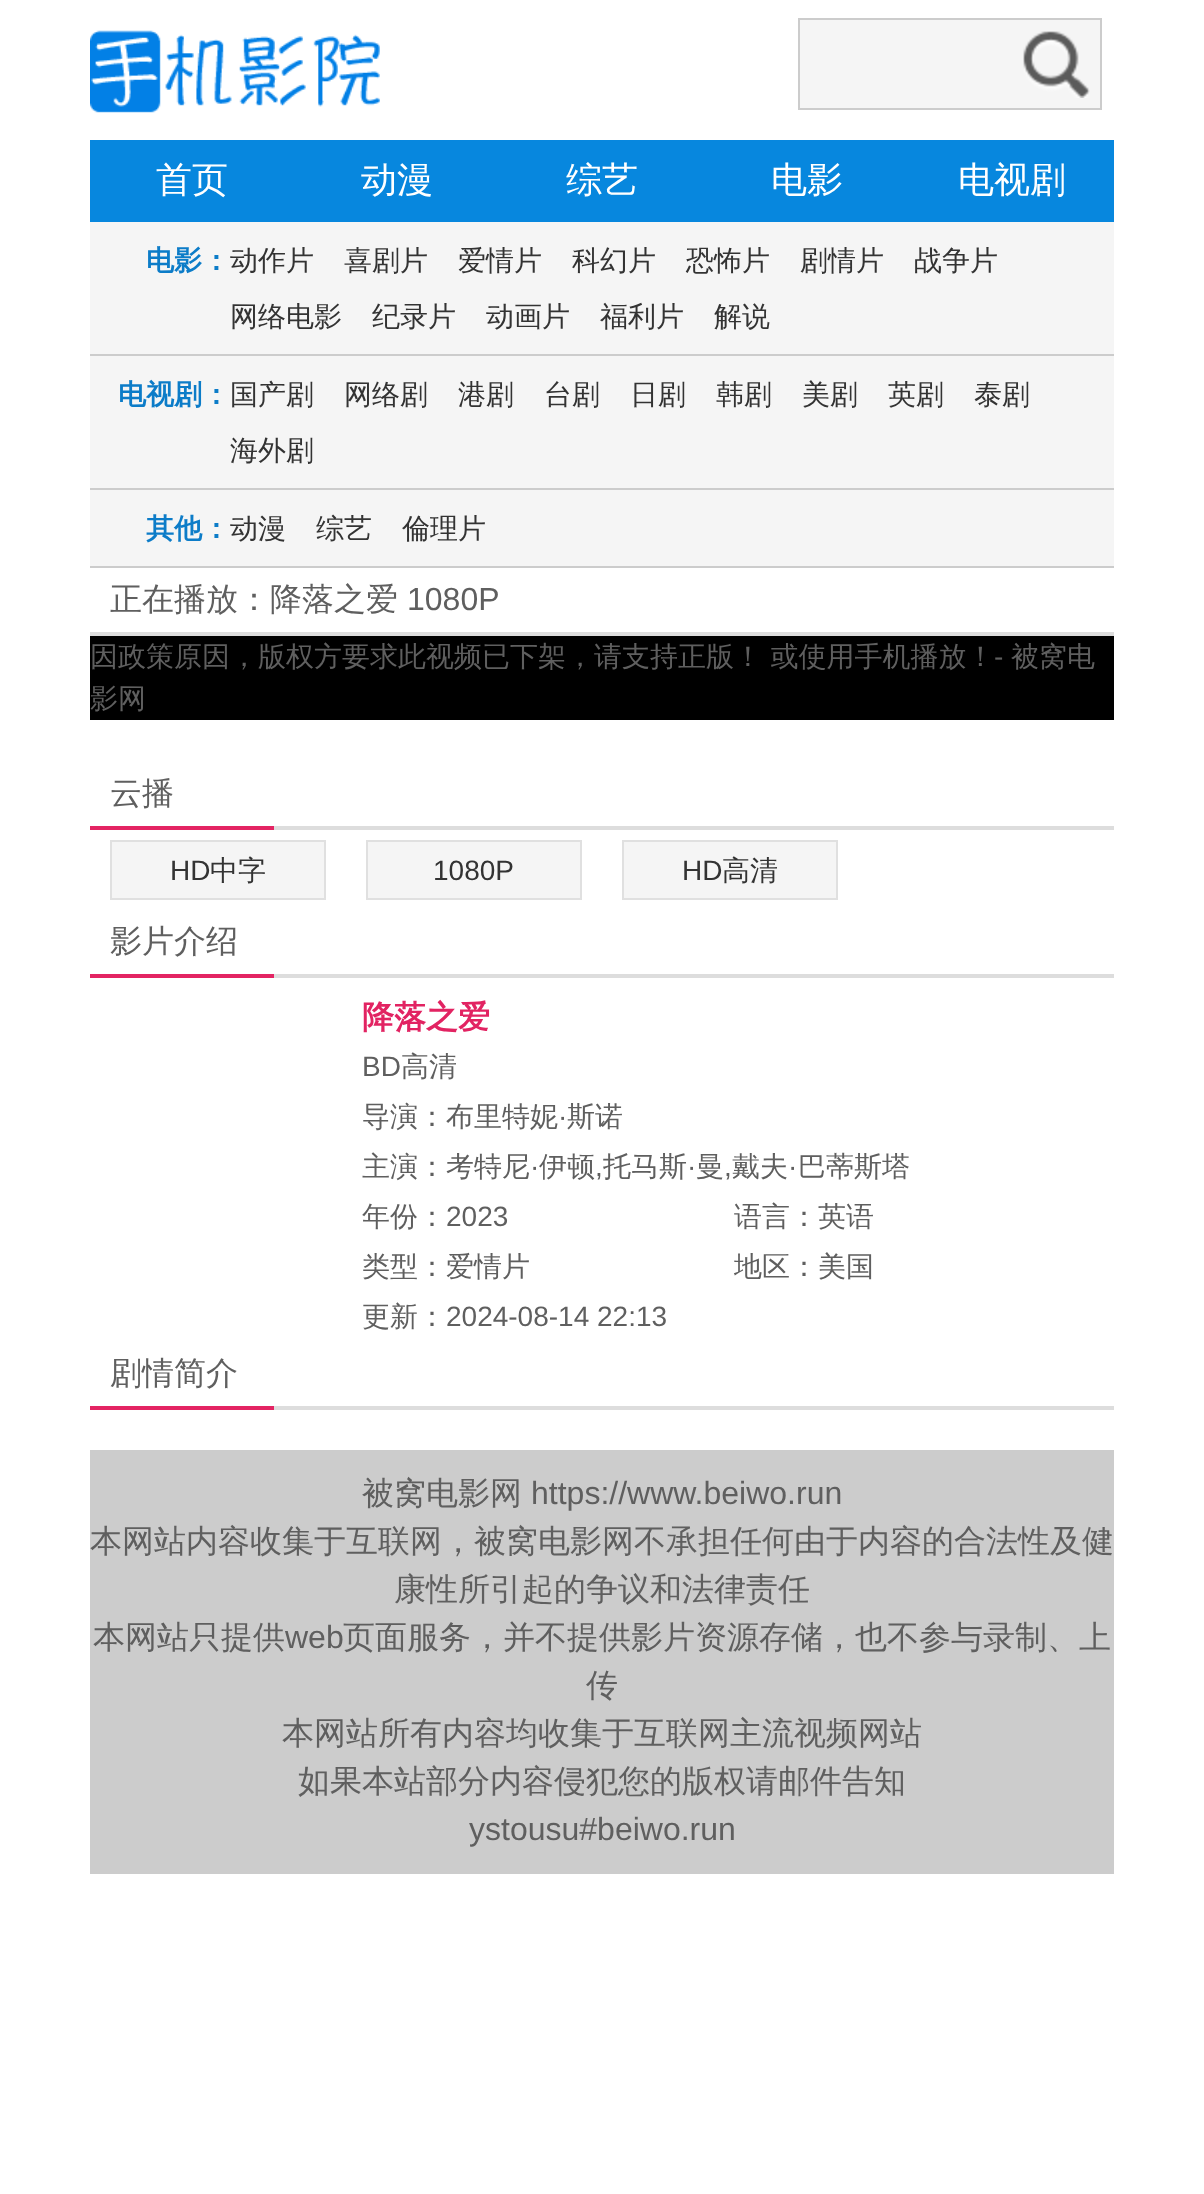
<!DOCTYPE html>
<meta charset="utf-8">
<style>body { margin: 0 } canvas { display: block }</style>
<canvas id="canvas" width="1204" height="2194"></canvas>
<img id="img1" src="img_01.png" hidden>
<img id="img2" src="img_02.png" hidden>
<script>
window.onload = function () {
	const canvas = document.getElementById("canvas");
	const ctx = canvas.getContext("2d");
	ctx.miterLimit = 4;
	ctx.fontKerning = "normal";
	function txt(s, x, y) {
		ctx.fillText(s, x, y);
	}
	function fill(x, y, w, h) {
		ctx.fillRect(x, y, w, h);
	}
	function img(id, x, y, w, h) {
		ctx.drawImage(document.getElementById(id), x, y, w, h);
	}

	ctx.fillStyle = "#FFFFFF";
	fill(0, 0, 1204, 2194);
	img("img1", 90, 30, 290, 83);
	ctx.fillStyle = "#F5F5F5";
	ctx.beginPath();
	ctx.rect(799, 19, 302, 90);
	ctx.fill();
	ctx.strokeStyle = "#CCCCCC";
	ctx.lineWidth = 2;
	ctx.stroke();
	img("img2", 1023, 31, 67, 67);
	ctx.fillStyle = "#0787DE";
	fill(90, 140, 1024, 80);
	fill(90, 220, 1024, 2);
	ctx.fillStyle = "#F5F5F5";
	fill(90, 222, 1024, 132);
	ctx.fillStyle = "#CCCCCC";
	fill(90, 354, 1024, 2);
	ctx.fillStyle = "#F5F5F5";
	fill(90, 356, 1024, 132);
	ctx.fillStyle = "#CCCCCC";
	fill(90, 488, 1024, 2);
	ctx.fillStyle = "#F5F5F5";
	fill(90, 490, 1024, 76);
	ctx.fillStyle = "#CCCCCC";
	fill(90, 566, 1024, 2);
	ctx.fillStyle = "#DDDDDD";
	fill(90, 632, 1024, 4);
	ctx.fillStyle = "#000000";
	fill(90, 636, 1024, 84);
	ctx.fillStyle = "#DDDDDD";
	fill(274, 826, 840, 4);
	ctx.fillStyle = "#E32463";
	fill(90, 826, 184, 4);
	ctx.fillStyle = "#F5F5F5";
	ctx.beginPath();
	ctx.rect(111, 841, 214, 58);
	ctx.fill();
	ctx.strokeStyle = "#E0E0E0";
	ctx.stroke();
	ctx.beginPath();
	ctx.rect(367, 841, 214, 58);
	ctx.fill();
	ctx.stroke();
	ctx.beginPath();
	ctx.rect(623, 841, 214, 58);
	ctx.fill();
	ctx.stroke();
	ctx.fillStyle = "#DDDDDD";
	fill(274, 974, 840, 4);
	ctx.fillStyle = "#E32463";
	fill(90, 974, 184, 4);
	ctx.fillStyle = "#DDDDDD";
	fill(274, 1406, 840, 4);
	ctx.fillStyle = "#E32463";
	fill(90, 1406, 184, 4);
	ctx.fillStyle = "#CCCCCC";
	fill(90, 1450, 1024, 424);
	ctx.font = "500 36px WenQuanYi Zen Hei";
	ctx.fillStyle = "#FFFFFF";
	txt("首页", 156, 192);
	txt("动漫", 361, 192);
	txt("综艺", 566, 192);
	txt("电影", 771, 192);
	txt("电视剧", 958, 192);
	ctx.font = "bold 28px WenQuanYi Zen Hei";
	ctx.fillStyle = "#0C7CC8";
	txt("电影：", 146, 270);
	ctx.font = "500 28px WenQuanYi Zen Hei";
	ctx.fillStyle = "#333333";
	txt("动作片", 230, 270);
	txt("喜剧片", 344, 270);
	txt("爱情片", 458, 270);
	txt("科幻片", 572, 270);
	txt("恐怖片", 686, 270);
	txt("剧情片", 800, 270);
	txt("战争片", 914, 270);
	txt("网络电影", 230, 326);
	txt("纪录片", 372, 326);
	txt("动画片", 486, 326);
	txt("福利片", 600, 326);
	txt("解说", 714, 326);
	ctx.font = "bold 28px WenQuanYi Zen Hei";
	ctx.fillStyle = "#0C7CC8";
	txt("电视剧：", 118, 404);
	ctx.font = "500 28px WenQuanYi Zen Hei";
	ctx.fillStyle = "#333333";
	txt("国产剧", 230, 404);
	txt("网络剧", 344, 404);
	txt("港剧", 458, 404);
	txt("台剧", 544, 404);
	txt("日剧", 630, 404);
	txt("韩剧", 716, 404);
	txt("美剧", 802, 404);
	txt("英剧", 888, 404);
	txt("泰剧", 974, 404);
	txt("海外剧", 230, 460);
	ctx.font = "bold 28px WenQuanYi Zen Hei";
	ctx.fillStyle = "#0C7CC8";
	txt("其他：", 146, 538);
	ctx.font = "500 28px WenQuanYi Zen Hei";
	ctx.fillStyle = "#333333";
	txt("动漫", 230, 538);
	txt("综艺", 316, 538);
	txt("倫理片", 402, 538);
	ctx.font = "500 32px WenQuanYi Zen Hei";
	ctx.fillStyle = "#5F5F5F";
	txt("正在播放：降落之爱", 110, 610);
	ctx.font = "32px Liberation Sans";
	txt("1080P", 407, 610);
	ctx.font = "500 28px WenQuanYi Zen Hei";
	txt("因政策原因，版权方要求此视频已下架，请支持正版！ 或使用手机播放！", 90, 666);
	ctx.font = "28px Liberation Sans";
	txt("-", 994, 666);
	ctx.font = "500 28px WenQuanYi Zen Hei";
	txt("被窝电", 1011, 666);
	txt("影网", 90, 708);
	ctx.font = "500 32px WenQuanYi Zen Hei";
	txt("云播", 110, 804);
	ctx.font = "28px Liberation Sans";
	ctx.fillStyle = "#333333";
	txt("HD", 170, 880);
	ctx.font = "500 28px WenQuanYi Zen Hei";
	txt("中字", 210, 880);
	ctx.font = "28px Liberation Sans";
	txt("1080P", 433, 880);
	txt("HD", 682, 880);
	ctx.font = "500 28px WenQuanYi Zen Hei";
	txt("高清", 722, 880);
	ctx.font = "500 32px WenQuanYi Zen Hei";
	ctx.fillStyle = "#5F5F5F";
	txt("影片介绍", 110, 952);
	ctx.font = "bold 32px WenQuanYi Zen Hei";
	ctx.fillStyle = "#E22362";
	txt("降落之爱", 362, 1028);
	ctx.font = "28px Liberation Sans";
	ctx.fillStyle = "#5F5F5F";
	txt("BD", 362, 1076);
	ctx.font = "500 28px WenQuanYi Zen Hei";
	txt("高清", 401, 1076);
	txt("导演：布里特妮", 362, 1126);
	ctx.font = "28px Liberation Sans";
	txt("·", 558, 1126);
	ctx.font = "500 28px WenQuanYi Zen Hei";
	txt("斯诺", 567, 1126);
	txt("主演：考特尼", 362, 1176);
	ctx.font = "28px Liberation Sans";
	txt("·", 530, 1176);
	ctx.font = "500 28px WenQuanYi Zen Hei";
	txt("伊顿", 539, 1176);
	txt("托马斯", 603, 1176);
	ctx.font = "28px Liberation Sans";
	txt("·", 687, 1176);
	ctx.font = "500 28px WenQuanYi Zen Hei";
	txt("曼", 696, 1176);
	txt("戴夫", 732, 1176);
	ctx.font = "28px Liberation Sans";
	txt("·", 788, 1176);
	ctx.font = "500 28px WenQuanYi Zen Hei";
	txt("巴蒂斯塔", 798, 1176);
	ctx.font = "28px Liberation Sans";
	txt(",", 595, 1176);
	txt(",", 724, 1176);
	ctx.font = "500 28px WenQuanYi Zen Hei";
	txt("年份：", 362, 1226);
	ctx.font = "28px Liberation Sans";
	txt("2023", 446, 1226);
	ctx.font = "500 28px WenQuanYi Zen Hei";
	txt("语言：英语", 734, 1226);
	txt("类型：爱情片", 362, 1276);
	txt("地区：美国", 734, 1276);
	txt("更新：", 362, 1326);
	ctx.font = "28px Liberation Sans";
	txt("2024-08-14 22:13", 446, 1326);
	ctx.font = "500 32px WenQuanYi Zen Hei";
	txt("剧情简介", 110, 1384);
	txt("被窝电影网", 362, 1504);
	ctx.font = "32px Liberation Sans";
	txt("https://www.beiwo.run", 531, 1504);
	ctx.font = "500 32px WenQuanYi Zen Hei";
	txt("本网站内容收集于互联网，被窝电影网不承担任何由于内容的合法性及健", 90, 1552);
	txt("康性所引起的争议和法律责任", 394, 1600);
	txt("本网站只提供", 93, 1648);
	ctx.font = "32px Liberation Sans";
	txt("web", 285, 1648);
	ctx.font = "500 32px WenQuanYi Zen Hei";
	txt("页面服务，并不提供影片资源存储，也不参与录制、上", 343, 1648);
	txt("传", 586, 1696);
	txt("本网站所有内容均收集于互联网主流视频网站", 282, 1744);
	txt("如果本站部分内容侵犯您的版权请邮件告知", 298, 1792);
	ctx.font = "32px Liberation Sans";
	txt("ystousu#beiwo.run", 469, 1840);
};
</script>
